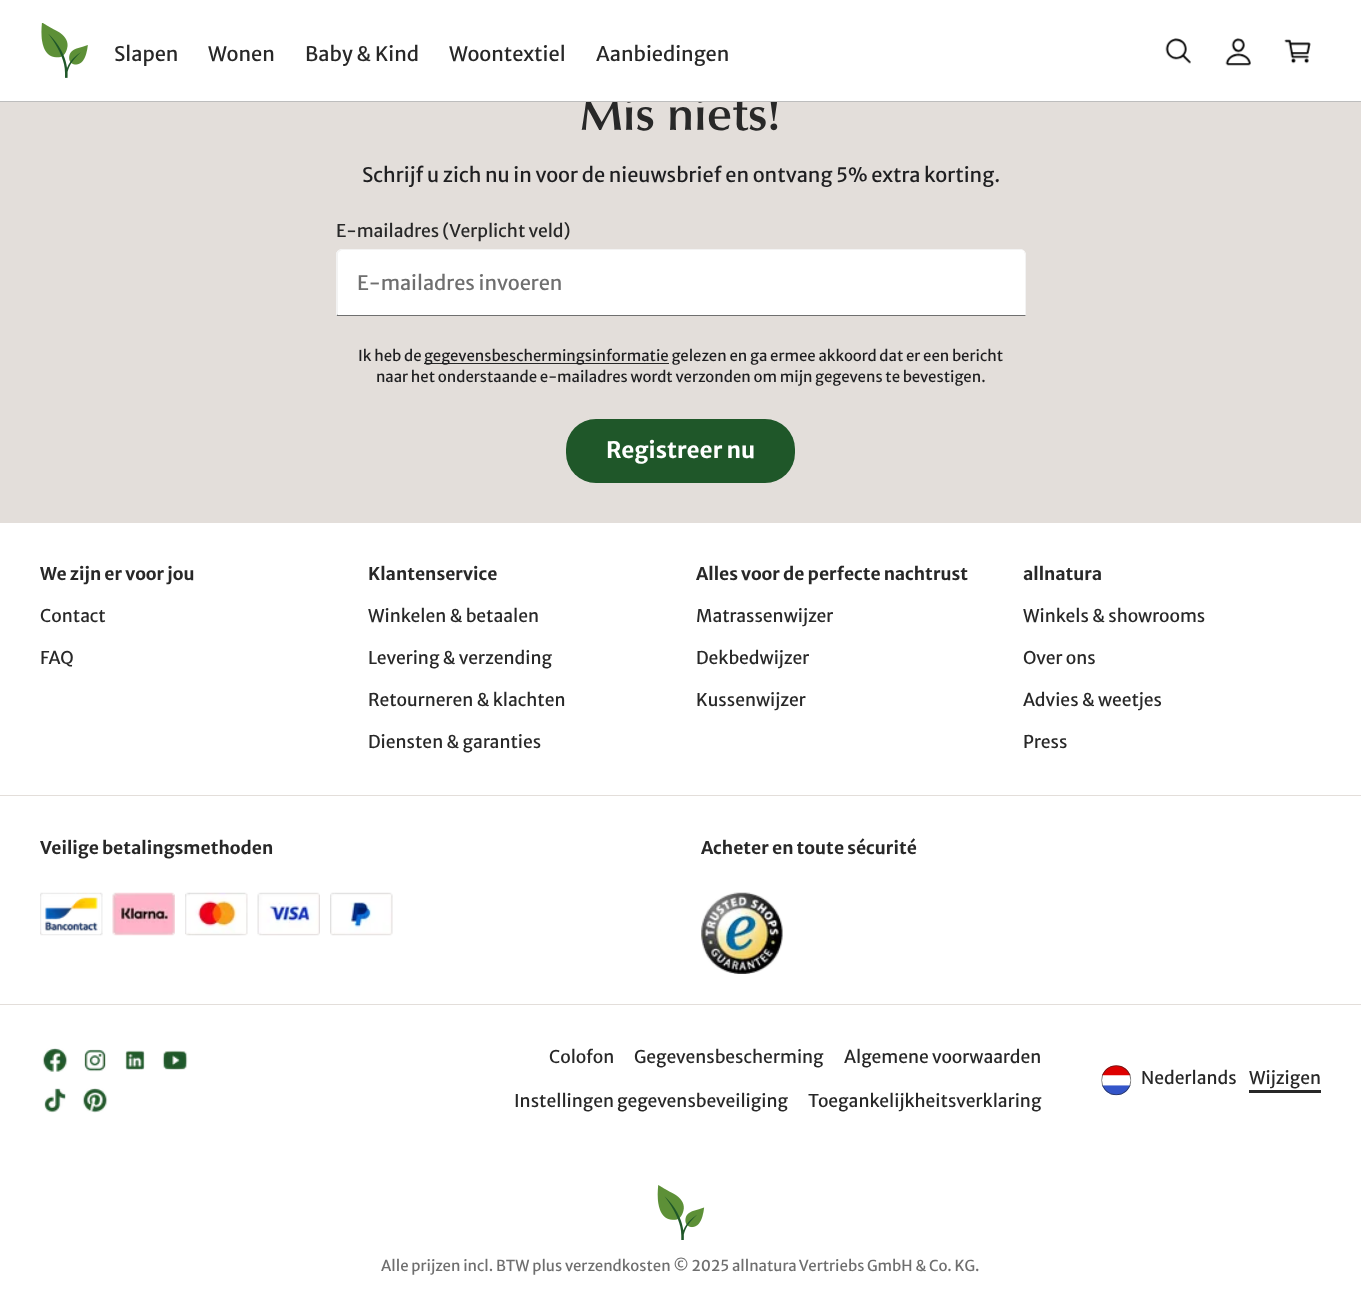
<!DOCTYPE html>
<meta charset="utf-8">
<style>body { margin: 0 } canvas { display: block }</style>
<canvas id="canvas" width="1361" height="1316"></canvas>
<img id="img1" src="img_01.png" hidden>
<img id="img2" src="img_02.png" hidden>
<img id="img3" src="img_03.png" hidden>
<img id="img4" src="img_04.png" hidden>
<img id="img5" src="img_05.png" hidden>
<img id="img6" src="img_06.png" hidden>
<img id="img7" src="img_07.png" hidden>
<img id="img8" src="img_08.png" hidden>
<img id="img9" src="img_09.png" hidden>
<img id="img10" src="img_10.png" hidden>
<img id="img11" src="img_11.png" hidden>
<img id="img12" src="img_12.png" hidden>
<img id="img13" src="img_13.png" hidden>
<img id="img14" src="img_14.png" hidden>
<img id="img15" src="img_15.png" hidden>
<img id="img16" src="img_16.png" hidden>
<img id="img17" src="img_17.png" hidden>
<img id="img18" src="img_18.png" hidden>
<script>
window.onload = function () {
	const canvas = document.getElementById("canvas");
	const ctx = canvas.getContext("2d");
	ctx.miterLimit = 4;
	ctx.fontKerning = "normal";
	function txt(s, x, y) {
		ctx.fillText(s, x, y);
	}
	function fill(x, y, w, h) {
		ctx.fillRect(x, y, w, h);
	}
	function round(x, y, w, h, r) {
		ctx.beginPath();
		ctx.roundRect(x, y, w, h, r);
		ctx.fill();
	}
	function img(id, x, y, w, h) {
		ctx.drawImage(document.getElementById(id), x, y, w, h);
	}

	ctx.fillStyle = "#FFFFFF";
	fill(0, 0, 1361, 1316);
	img("img1", 41, 23, 47, 55);
	img("img2", 1165, 38, 26, 26);
	img("img3", 1225, 38, 26, 28);
	img("img4", 1284, 39, 27, 25);
	ctx.fillStyle = "#E3DEDA";
	fill(0, 102, 1361, 421);
	ctx.fillStyle = "#FFFFFF";
	ctx.beginPath();
	ctx.roundRect(336, 249, 690, 67, [6, 6, 0, 0]);
	ctx.fill();
	ctx.fillStyle = "#F3F3F3";
	ctx.beginPath();
	ctx.moveTo(342, 249);
	ctx.bezierCurveTo(341, 249, 339, 250, 338, 251);
	ctx.lineTo(339, 252);
	ctx.bezierCurveTo(340, 251, 341, 250, 342, 250);
	ctx.lineTo(1020, 250);
	ctx.bezierCurveTo(1022, 250, 1023, 250, 1024, 251);
	ctx.bezierCurveTo(1023, 250, 1022, 249, 1020, 249);
	ctx.closePath();
	ctx.fill();
	ctx.beginPath();
	ctx.moveTo(1026, 316);
	ctx.lineTo(1026, 255);
	ctx.bezierCurveTo(1026, 254, 1025, 252, 1024, 251);
	ctx.bezierCurveTo(1024, 252, 1025, 254, 1025, 255);
	ctx.lineTo(1025, 315);
	ctx.closePath();
	ctx.fill();
	ctx.fillStyle = "#6F6F6F";
	ctx.beginPath();
	ctx.moveTo(1026, 316);
	ctx.lineTo(1025, 315);
	ctx.lineTo(338, 315);
	ctx.lineTo(338, 314);
	ctx.lineTo(336, 316);
	ctx.closePath();
	ctx.fill();
	ctx.fillStyle = "#F3F3F3";
	ctx.beginPath();
	ctx.moveTo(336, 253);
	ctx.lineTo(338, 251);
	ctx.lineTo(339, 252);
	ctx.bezierCurveTo(338, 252, 338, 254, 338, 255);
	ctx.lineTo(338, 314);
	ctx.lineTo(336, 316);
	ctx.closePath();
	ctx.fill();
	ctx.fillStyle = "#282828";
	fill(424, 363, 245, 1);
	ctx.fillStyle = "#1F5729";
	round(566, 419, 229, 64, 30);
	ctx.fillStyle = "#E3DEDA";
	fill(0, 795, 1361, 1);
	fill(0, 1004, 1361, 1);
	img("img5", 40, 892, 63, 44);
	img("img6", 112, 892, 63, 44);
	img("img7", 185, 892, 63, 44);
	img("img8", 257, 892, 63, 44);
	img("img9", 330, 892, 63, 44);
	img("img10", 701, 892, 82, 82);
	img("img11", 42, 1048, 26, 24);
	img("img12", 84, 1049, 22, 23);
	img("img13", 125, 1050, 20, 20);
	img("img14", 162, 1050, 26, 20);
	img("img15", 44, 1088, 22, 25);
	img("img16", 82, 1088, 26, 25);
	img("img17", 1101, 1065, 31, 31);
	ctx.fillStyle = "#282828";
	fill(1249, 1090, 72, 3);
	img("img18", 657, 1185, 48, 55);
	ctx.font = "20px Merriweather Sans";
	txt("Slapen", 114, 61);
	txt("Wonen", 208, 61);
	txt("Baby & Kind", 305, 61);
	txt("Woontextiel", 449, 61);
	txt("Aanbiedingen", 596, 61);
	ctx.font = "600 47.5px Optima";
	txt("Mis niets!", 580, 130);
	ctx.fillStyle = "#BDBDBD";
	fill(0, 101, 1361, 1);
	ctx.fillStyle = "#FFFFFF";
	fill(586, 96, 192, 5);
	ctx.font = "20px Merriweather Sans";
	ctx.fillStyle = "#1F1F21";
	txt("Schrijf u zich nu in voor de nieuwsbrief en ontvang 5% extra korting.", 362, 182);
	ctx.font = "17.5px Merriweather Sans";
	ctx.fillStyle = "#282828";
	txt("E-mailadres (Verplicht veld)", 336, 237);
	ctx.font = "20px Merriweather Sans";
	ctx.fillStyle = "#6F6F6F";
	txt("E-mailadres invoeren", 357, 290);
	ctx.font = "15px Merriweather Sans";
	ctx.fillStyle = "#1F1F21";
	txt("Ik heb de", 358, 361);
	txt("gegevensbeschermingsinformatie gelezen en ga ermee akkoord dat er een bericht", 424, 361);
	txt("naar het onderstaande e-mailadres wordt verzonden om mijn gegevens te bevestigen.", 376, 382);
	ctx.font = "bold 22.5px Merriweather Sans";
	ctx.fillStyle = "#FFFFFF";
	txt("Registreer nu", 606, 458);
	ctx.font = "bold 17.5px Merriweather Sans";
	ctx.fillStyle = "#282828";
	txt("We zijn er voor jou", 40, 580);
	ctx.font = "17.5px Merriweather Sans";
	txt("Contact", 40, 622);
	txt("FAQ", 40, 664);
	ctx.font = "bold 17.5px Merriweather Sans";
	txt("Klantenservice", 368, 580);
	ctx.font = "17.5px Merriweather Sans";
	txt("Winkelen & betaalen", 368, 622);
	txt("Levering & verzending", 368, 664);
	txt("Retourneren & klachten", 368, 706);
	txt("Diensten & garanties", 368, 748);
	ctx.font = "bold 17.5px Merriweather Sans";
	txt("Alles voor de perfecte nachtrust", 696, 580);
	ctx.font = "17.5px Merriweather Sans";
	txt("Matrassenwijzer", 696, 622);
	txt("Dekbedwijzer", 696, 664);
	txt("Kussenwijzer", 696, 706);
	ctx.font = "bold 17.5px Merriweather Sans";
	txt("allnatura", 1023, 580);
	ctx.font = "17.5px Merriweather Sans";
	txt("Winkels & showrooms", 1023, 622);
	txt("Over ons", 1023, 664);
	txt("Advies & weetjes", 1023, 706);
	txt("Press", 1023, 748);
	ctx.font = "bold 17.5px Merriweather Sans";
	txt("Veilige betalingsmethoden", 40, 854);
	txt("Acheter en toute sécurité", 701, 854);
	ctx.font = "17.5px Merriweather Sans";
	txt("Colofon", 549, 1063);
	txt("Gegevensbescherming", 634, 1063);
	txt("Algemene voorwaarden", 844, 1063);
	txt("Instellingen gegevensbeveiliging", 514, 1107);
	txt("Toegankelijkheitsverklaring", 808, 1107);
	txt("Nederlands", 1141, 1084);
	txt("Wijzigen", 1249, 1084);
	ctx.font = "15px Merriweather Sans";
	ctx.fillStyle = "#6F6F6F";
	txt("Alle prijzen incl. BTW plus verzendkosten © 2025 allnatura Vertriebs GmbH & Co. KG.", 381, 1271);
};
</script>
